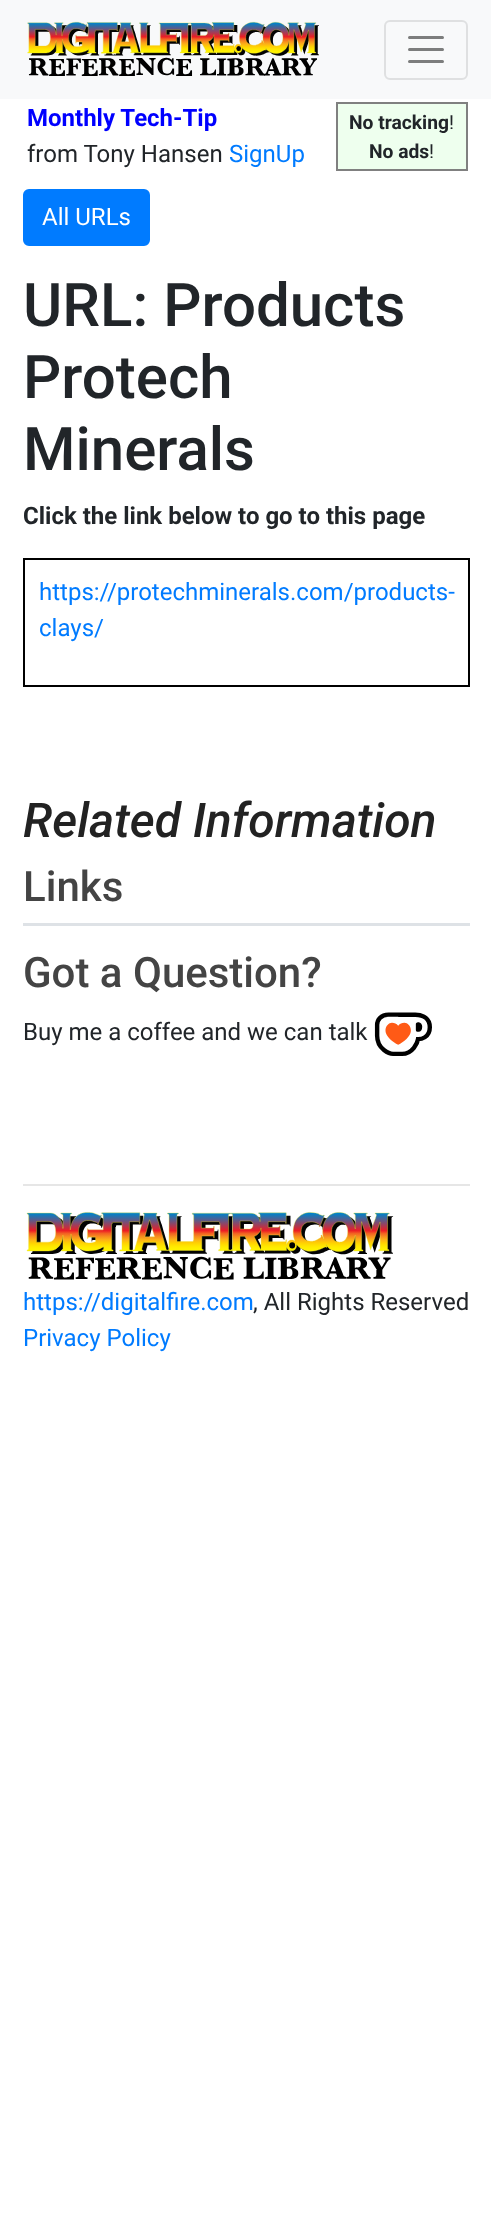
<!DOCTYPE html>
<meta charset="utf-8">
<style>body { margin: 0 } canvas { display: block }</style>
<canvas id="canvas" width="491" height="2234"></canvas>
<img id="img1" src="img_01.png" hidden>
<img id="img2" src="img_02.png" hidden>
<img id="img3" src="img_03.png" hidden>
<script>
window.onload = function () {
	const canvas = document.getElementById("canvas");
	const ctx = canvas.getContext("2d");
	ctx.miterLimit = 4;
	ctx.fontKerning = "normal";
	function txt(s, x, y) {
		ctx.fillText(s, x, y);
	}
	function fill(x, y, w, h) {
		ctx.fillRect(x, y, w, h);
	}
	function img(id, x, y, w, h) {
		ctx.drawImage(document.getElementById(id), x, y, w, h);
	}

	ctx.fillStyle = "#FFFFFF";
	fill(0, 0, 491, 2234);
	ctx.fillStyle = "#F8F9FA";
	fill(0, 0, 491, 99);
	img("img1", 27, 21, 292, 55);
	ctx.beginPath();
	ctx.roundRect(385, 21, 82, 58, 5);
	ctx.strokeStyle = "#DFE0E1";
	ctx.lineWidth = 2;
	ctx.stroke();
	ctx.beginPath();
	ctx.moveTo(409.5, 37.5);
	ctx.lineTo(442.5, 37.5);
	ctx.moveTo(409.5, 49.5);
	ctx.lineTo(442.5, 49.5);
	ctx.moveTo(409.5, 61.5);
	ctx.lineTo(442.5, 61.5);
	ctx.strokeStyle = "#7C7D7D";
	ctx.lineWidth = 3;
	ctx.lineCap = "round";
	ctx.stroke();
	ctx.fillStyle = "#EEFFEE";
	ctx.beginPath();
	ctx.rect(337, 103, 130, 67);
	ctx.fill();
	ctx.strokeStyle = "#808080";
	ctx.lineWidth = 2;
	ctx.stroke();
	ctx.fillStyle = "#007BFF";
	ctx.beginPath();
	ctx.roundRect(24, 190, 125, 55, 5);
	ctx.fill();
	ctx.strokeStyle = "#007BFF";
	ctx.stroke();
	ctx.strokeStyle = "#000000";
	ctx.strokeRect(24, 559, 445, 127);
	ctx.fillStyle = "#DEE2E6";
	fill(23, 923, 447, 3);
	img("img2", 374, 1012, 58, 44);
	ctx.fillStyle = "#E6E6E6";
	fill(23, 1184, 447, 2);
	img("img3", 26, 1211, 368, 69);
	ctx.font = "bold 24px Roboto";
	ctx.fillStyle = "#0000FF";
	txt("Monthly Tech-Tip", 27, 126);
	ctx.font = "24px Roboto";
	ctx.fillStyle = "#212529";
	txt("from Tony Hansen", 27, 162);
	ctx.fillStyle = "#007BFF";
	txt("SignUp", 229, 162);
	ctx.font = "bold 19.25px Roboto";
	ctx.fillStyle = "#212529";
	txt("No tracking", 349, 129);
	ctx.font = "19.25px Roboto";
	txt("!", 449, 129);
	ctx.font = "bold 19.25px Roboto";
	txt("No ads", 369, 158);
	ctx.font = "19.25px Roboto";
	txt("!", 429, 158);
	ctx.font = "24px Roboto";
	ctx.fillStyle = "#FFFFFF";
	txt("All URLs", 42, 225);
	ctx.font = "500 60px Roboto";
	ctx.fillStyle = "#212529";
	txt("URL: Products", 23, 326);
	txt("Protech", 23, 398);
	txt("Minerals", 23, 470);
	ctx.font = "bold 24px Roboto";
	txt("Click the link below to go to this page", 23, 524);
	ctx.font = "24px Roboto";
	ctx.fillStyle = "#007BFF";
	txt("https://protechminerals.com/products-", 39, 600);
	txt("clays/", 39, 636);
	ctx.font = "italic 500 48px Roboto";
	ctx.fillStyle = "#222222";
	txt("Related Information", 23, 837);
	ctx.font = "500 42px Roboto";
	ctx.fillStyle = "#444444";
	txt("Links", 23, 901);
	txt("Got a Question?", 23, 987);
	ctx.font = "24px Roboto";
	ctx.fillStyle = "#212529";
	txt("Buy me a coffee and we can talk", 23, 1040);
	ctx.fillStyle = "#007BFF";
	txt("https://digitalfire.com", 23, 1310);
	ctx.fillStyle = "#212529";
	txt(", All Rights Reserved", 253, 1310);
	ctx.fillStyle = "#007BFF";
	txt("Privacy Policy", 23, 1346);
};
</script>
